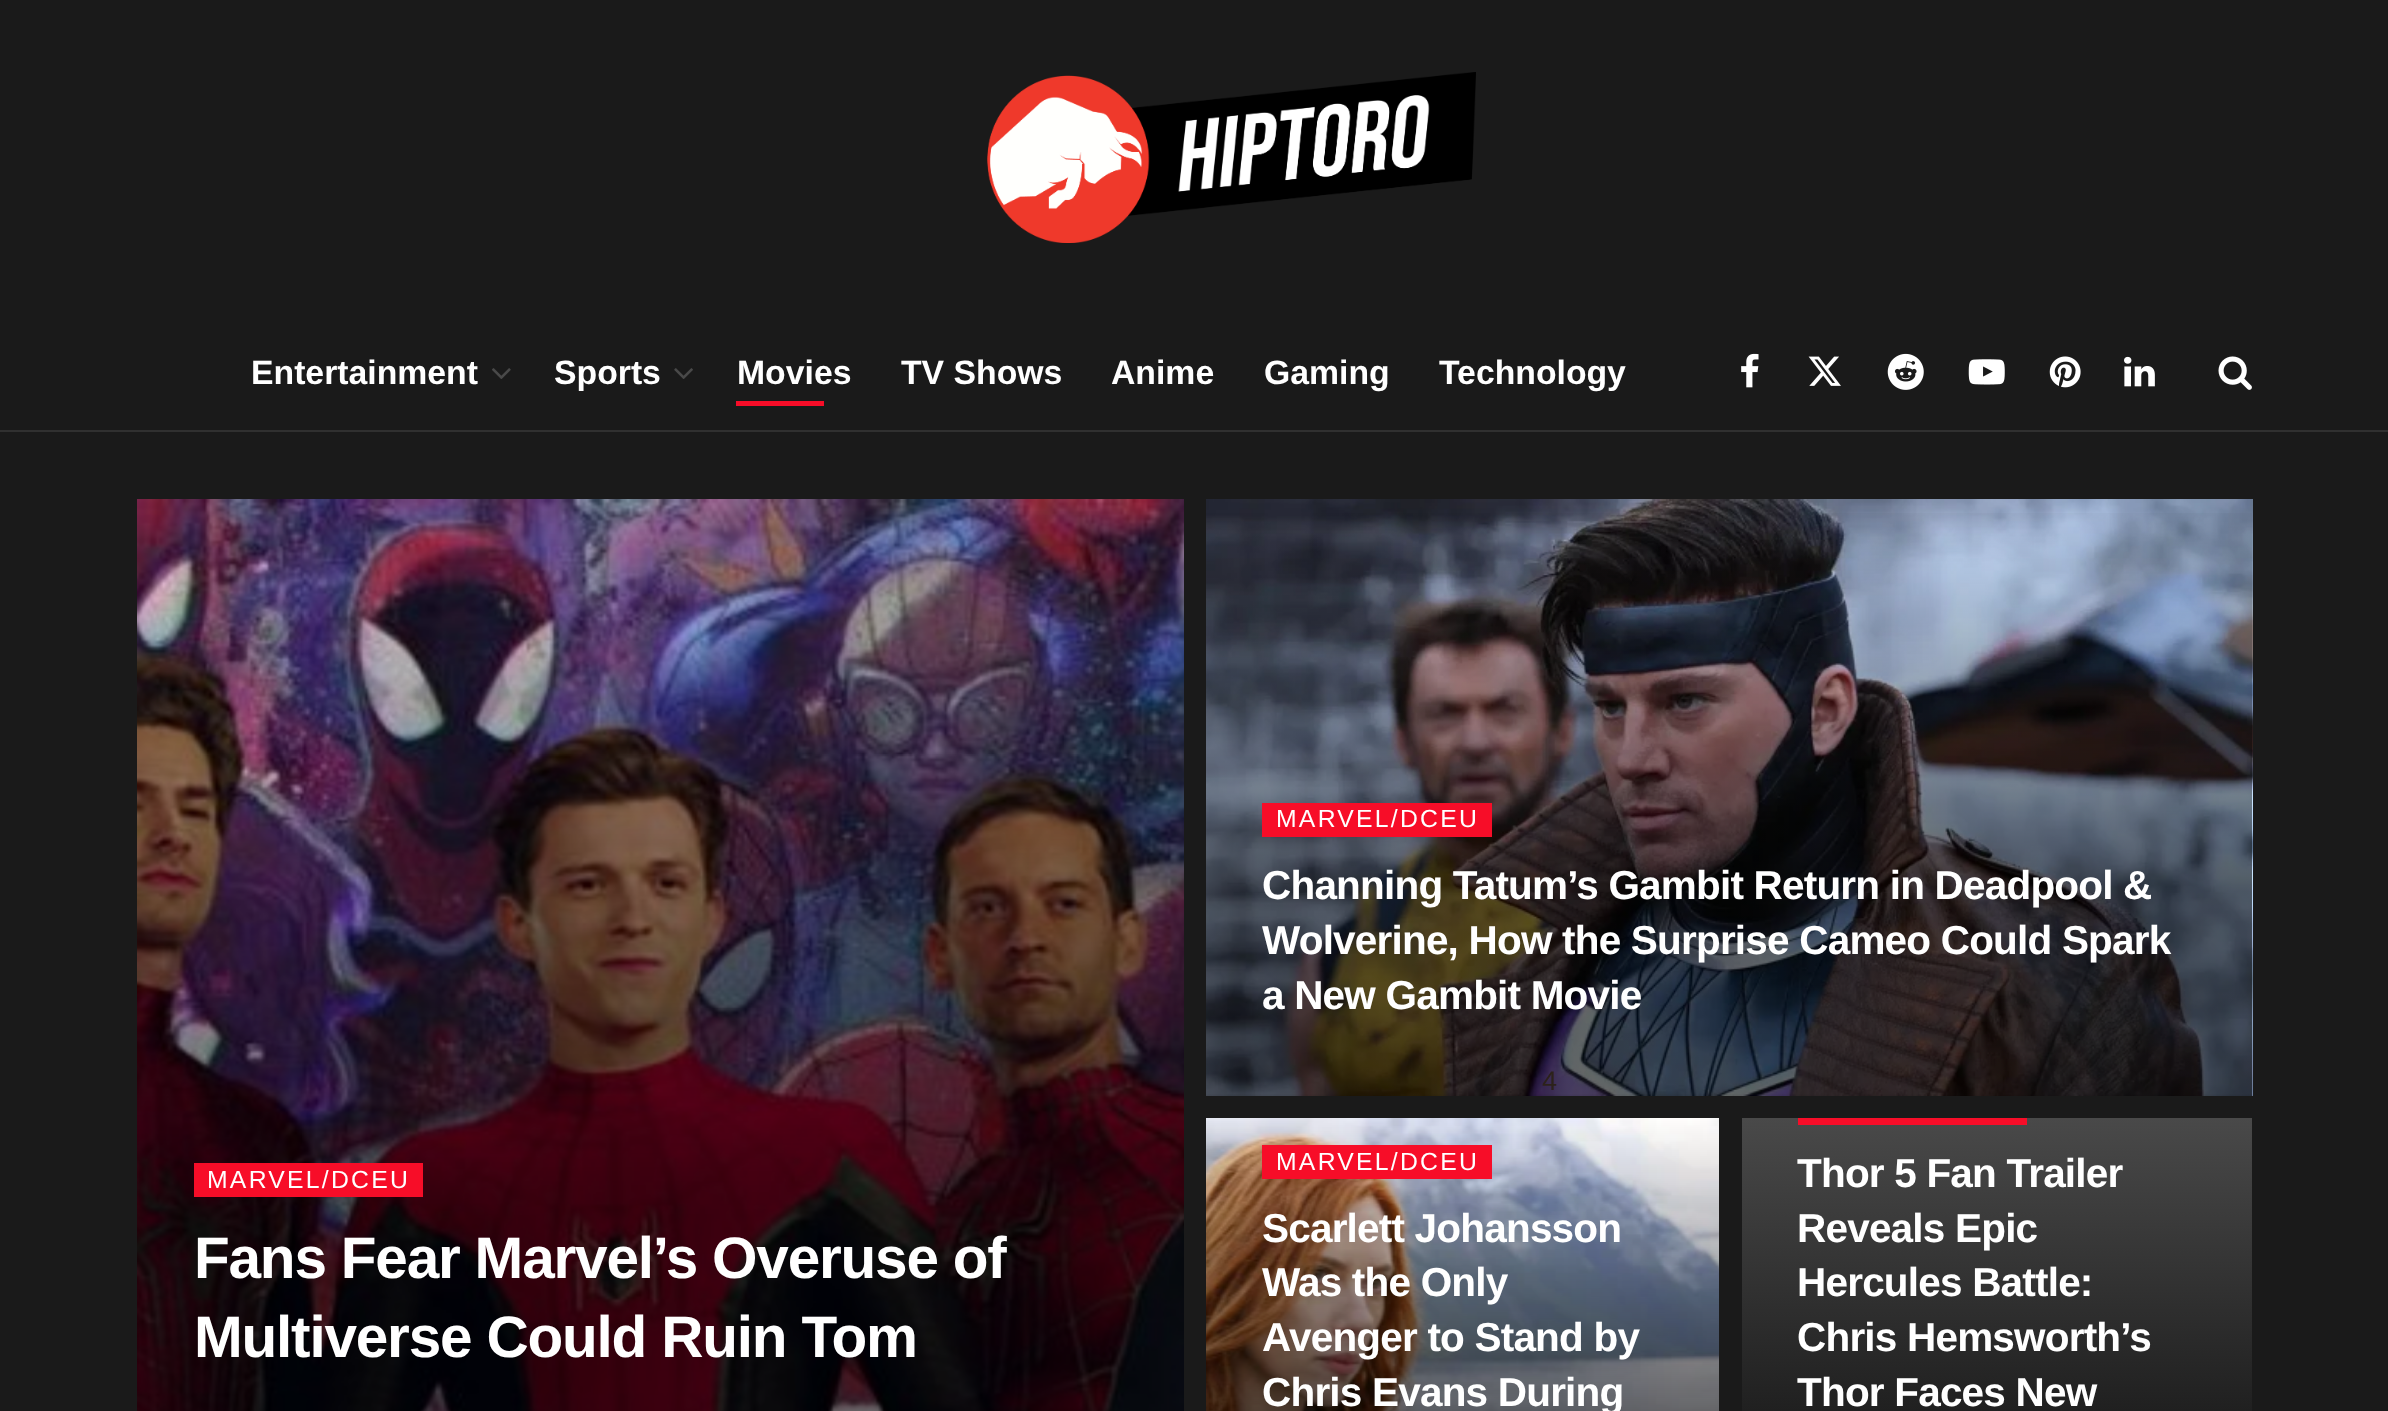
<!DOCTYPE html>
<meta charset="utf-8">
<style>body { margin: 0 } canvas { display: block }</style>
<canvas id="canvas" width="2388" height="1411"></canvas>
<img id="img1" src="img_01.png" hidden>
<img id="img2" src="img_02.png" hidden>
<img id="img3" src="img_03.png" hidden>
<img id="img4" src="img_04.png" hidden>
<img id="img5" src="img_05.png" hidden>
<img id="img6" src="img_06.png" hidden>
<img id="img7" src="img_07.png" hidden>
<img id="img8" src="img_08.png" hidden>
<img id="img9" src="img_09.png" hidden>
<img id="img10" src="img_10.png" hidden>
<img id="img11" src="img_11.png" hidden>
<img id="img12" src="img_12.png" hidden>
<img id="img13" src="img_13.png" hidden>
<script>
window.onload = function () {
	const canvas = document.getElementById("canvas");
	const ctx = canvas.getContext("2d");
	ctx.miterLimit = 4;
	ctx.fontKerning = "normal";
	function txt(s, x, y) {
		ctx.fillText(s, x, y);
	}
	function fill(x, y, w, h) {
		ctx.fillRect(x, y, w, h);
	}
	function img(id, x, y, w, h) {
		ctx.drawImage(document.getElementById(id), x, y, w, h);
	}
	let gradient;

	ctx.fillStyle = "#1A1A1A";
	fill(0, 0, 2388, 1411);
	img("img1", 987, 72, 489, 171);
	ctx.fillStyle = "#303030";
	fill(0, 430, 2388, 2);
	img("img2", 492, 368, 19, 11);
	img("img3", 674, 368, 19, 11);
	ctx.fillStyle = "#F70D28";
	fill(736, 401, 88, 5);
	img("img4", 1741, 353, 18, 35);
	img("img5", 1808, 356, 33, 30);
	img("img6", 1887, 353, 37, 37);
	img("img7", 1968, 359, 37, 26);
	img("img8", 2049, 356, 32, 32);
	img("img9", 2124, 356, 31, 31);
	img("img10", 2218, 356, 34, 34);
	img("img11", 137, 499, 1047, 912);
	fill(194, 1163, 229, 34);
	img("img12", 1206, 499, 1047, 597);
	gradient = ctx.createLinearGradient(1695, 499, 1695, 1096);
	gradient.addColorStop(0, "rgba(0, 0, 0, 0)");
	gradient.addColorStop(0.65, "rgba(0, 0, 0, 0.6)");
	gradient.addColorStop(1, "rgba(0, 0, 0, 0.6)");
	ctx.fillStyle = gradient;
	fill(1206, 513, 1046, 583);
	ctx.fillStyle = "#F70D28";
	fill(1262, 803, 230, 34);
	img("img13", 1206, 1118, 513, 293);
	fill(1262, 1145, 230, 34);
	gradient = ctx.createLinearGradient(1963, 1118, 1963, 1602);
	gradient.addColorStop(0, "#494949");
	gradient.addColorStop(0.65, "#1D1D1D");
	gradient.addColorStop(1, "#1D1D1D");
	ctx.fillStyle = gradient;
	fill(1742, 1118, 510, 293);
	ctx.fillStyle = "#F70D28";
	fill(1798, 1118, 229, 7);
	ctx.font = "bold 33.75px Liberation Sans";
	ctx.fillStyle = "#FFFFFF";
	txt("Entertainment", 251, 384);
	txt("Sports", 554, 384);
	txt("Movies", 737, 384);
	txt("TV Shows", 901, 384);
	txt("Anime", 1111, 384);
	txt("Gaming", 1264, 384);
	txt("Technology", 1439, 384);
	ctx.letterSpacing = "2.25px";
	ctx.font = "24.75px Liberation Sans";
	txt("MARVEL/DCEU", 207, 1188);
	ctx.letterSpacing = "-1.2px";
	ctx.font = "bold 58.5px Liberation Sans";
	txt("Fans Fear Marvel’s Overuse of", 194, 1278);
	txt("Multiverse Could Ruin Tom", 194, 1357);
	ctx.letterSpacing = "2.25px";
	ctx.font = "24.75px Liberation Sans";
	txt("MARVEL/DCEU", 1276, 827);
	ctx.letterSpacing = "-0.8px";
	ctx.font = "bold 40.5px Liberation Sans";
	txt("Channing Tatum’s Gambit Return in Deadpool &", 1262, 899);
	txt("Wolverine, How the Surprise Cameo Could Spark", 1262, 954);
	txt("a New Gambit Movie", 1262, 1009);
	ctx.letterSpacing = "0px";
	ctx.font = "27px Liberation Sans";
	ctx.fillStyle = "#2C221A";
	txt("4", 1542, 1090);
	ctx.letterSpacing = "2.25px";
	ctx.font = "24.75px Liberation Sans";
	ctx.fillStyle = "#FFFFFF";
	txt("MARVEL/DCEU", 1276, 1170);
	ctx.letterSpacing = "-0.8px";
	ctx.font = "bold 40.5px Liberation Sans";
	txt("Scarlett Johansson", 1262, 1242);
	txt("Was the Only", 1262, 1296);
	txt("Avenger to Stand by", 1262, 1351);
	txt("Chris Evans During", 1262, 1406);
	txt("Thor 5 Fan Trailer", 1797, 1187);
	txt("Reveals Epic", 1797, 1242);
	txt("Hercules Battle:", 1797, 1296);
	txt("Chris Hemsworth’s", 1797, 1351);
	txt("Thor Faces New", 1797, 1406);
};
</script>
